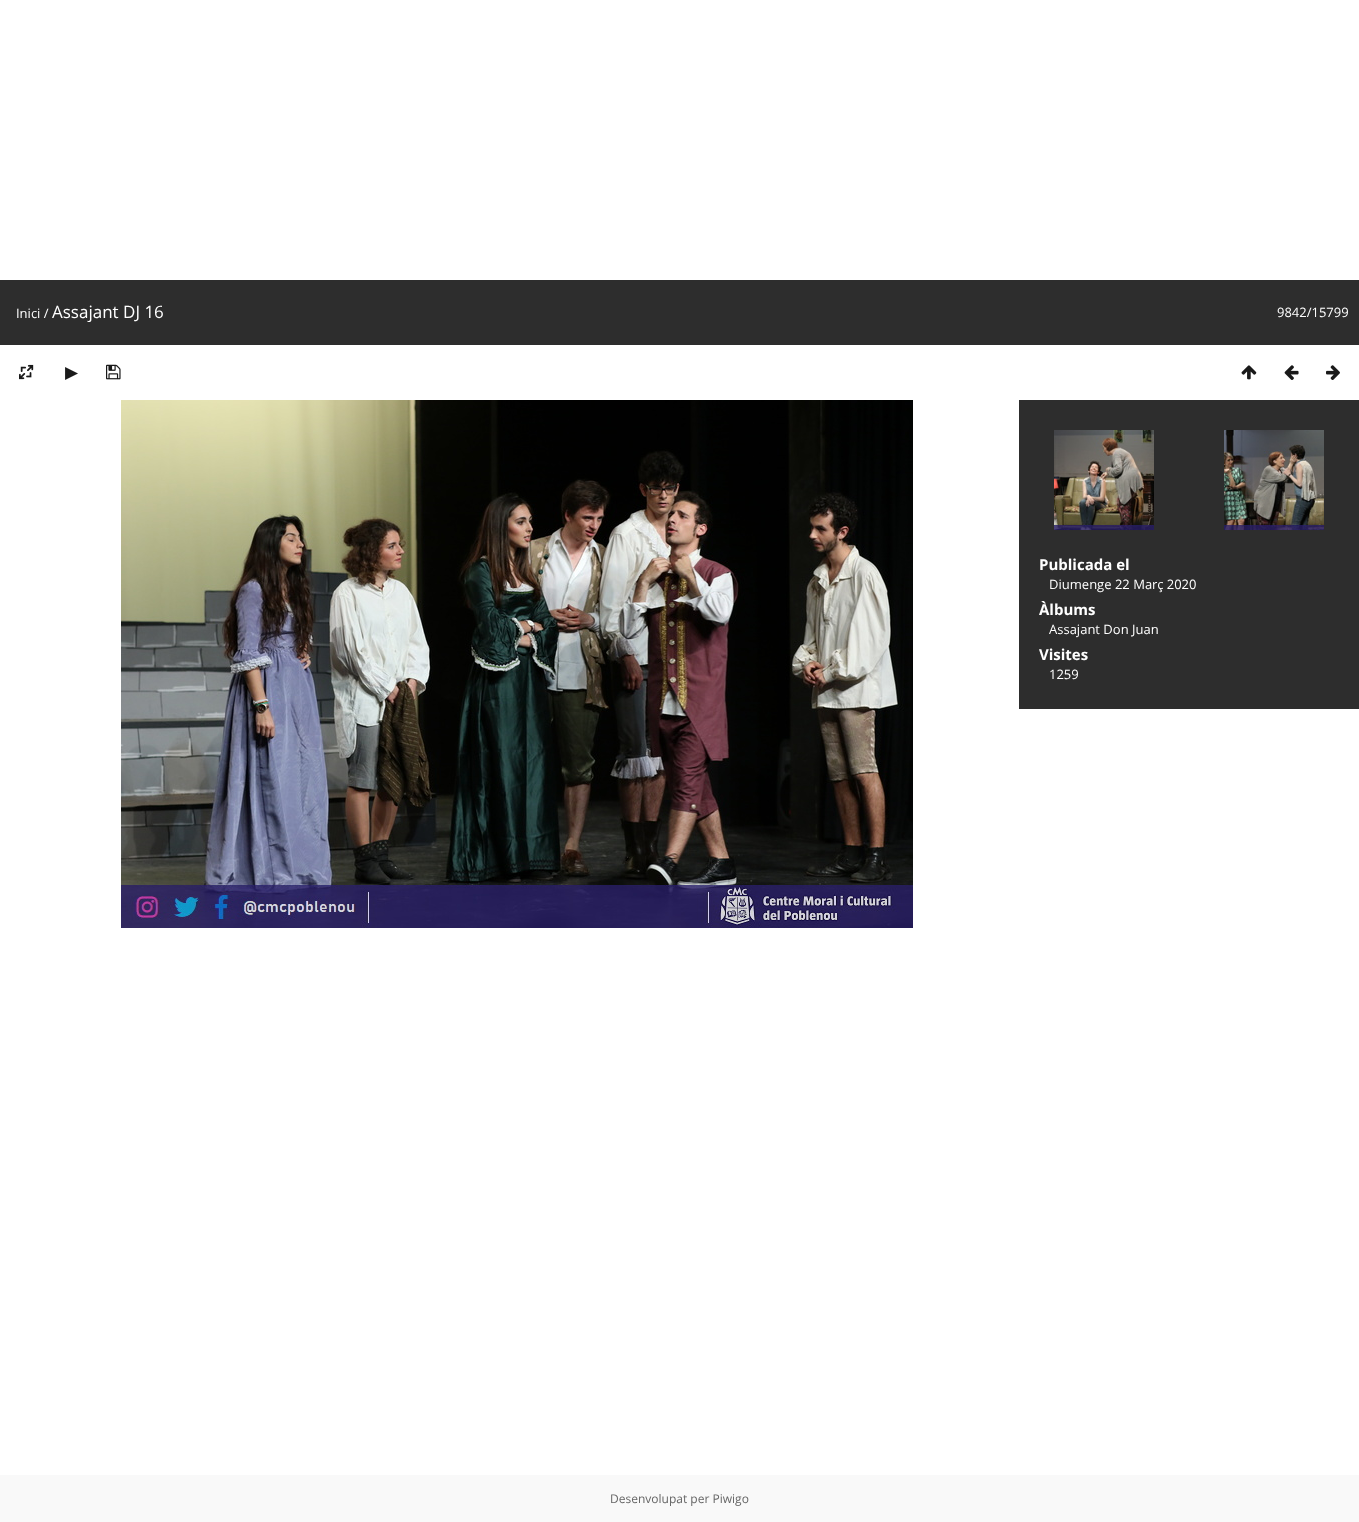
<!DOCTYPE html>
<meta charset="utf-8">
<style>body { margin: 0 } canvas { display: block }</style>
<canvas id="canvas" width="1359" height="1522"></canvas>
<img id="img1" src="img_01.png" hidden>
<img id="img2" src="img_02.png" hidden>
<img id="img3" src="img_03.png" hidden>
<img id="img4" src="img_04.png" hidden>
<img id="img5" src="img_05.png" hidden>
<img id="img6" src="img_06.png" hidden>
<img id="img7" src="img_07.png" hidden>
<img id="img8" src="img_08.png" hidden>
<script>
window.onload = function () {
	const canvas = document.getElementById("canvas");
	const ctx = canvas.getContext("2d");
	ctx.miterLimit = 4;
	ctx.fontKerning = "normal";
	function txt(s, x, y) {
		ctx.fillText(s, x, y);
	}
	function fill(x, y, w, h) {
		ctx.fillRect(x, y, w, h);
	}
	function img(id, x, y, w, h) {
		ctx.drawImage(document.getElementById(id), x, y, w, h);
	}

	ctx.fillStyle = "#FFFFFF";
	fill(0, 0, 1359, 1522);
	ctx.fillStyle = "#2D2D2D";
	fill(0, 280, 1359, 65);
	img("img1", 19, 364, 15, 16);
	img("img2", 106, 364, 15, 16);
	img("img3", 1241, 365, 16, 15);
	img("img4", 1284, 365, 15, 15);
	img("img5", 1326, 365, 14, 15);
	img("img6", 121, 400, 792, 528);
	fill(1019, 400, 340, 309);
	img("img7", 1054, 430, 100, 100);
	img("img8", 1224, 430, 100, 100);
	ctx.fillStyle = "#F9F9F9";
	fill(0, 1475, 1359, 47);
	ctx.font = "13px Open Sans";
	ctx.fillStyle = "#FFFFFF";
	txt("Inici /", 16, 318);
	ctx.font = "17px Open Sans";
	txt("Assajant DJ 16", 52, 318);
	ctx.font = "13px Open Sans";
	txt("9842/15799", 1277, 317);
	ctx.font = "17px DejaVu Sans";
	ctx.fillStyle = "#1A1A1A";
	txt("▶", 65, 378);
	ctx.font = "bold 15px Open Sans";
	ctx.fillStyle = "#FFFFFF";
	txt("Publicada el", 1039, 570);
	ctx.font = "13px Open Sans";
	txt("Diumenge 22 Març 2020", 1049, 589);
	ctx.font = "bold 15px Open Sans";
	txt("Àlbums", 1039, 615);
	ctx.font = "13px Open Sans";
	txt("Assajant Don Juan", 1049, 634);
	ctx.font = "bold 15px Open Sans";
	txt("Visites", 1039, 660);
	ctx.font = "13px Open Sans";
	txt("1259", 1049, 679);
	ctx.font = "12px Open Sans";
	ctx.fillStyle = "#666666";
	txt("Desenvolupat per Piwigo", 610, 1503);
};
</script>
